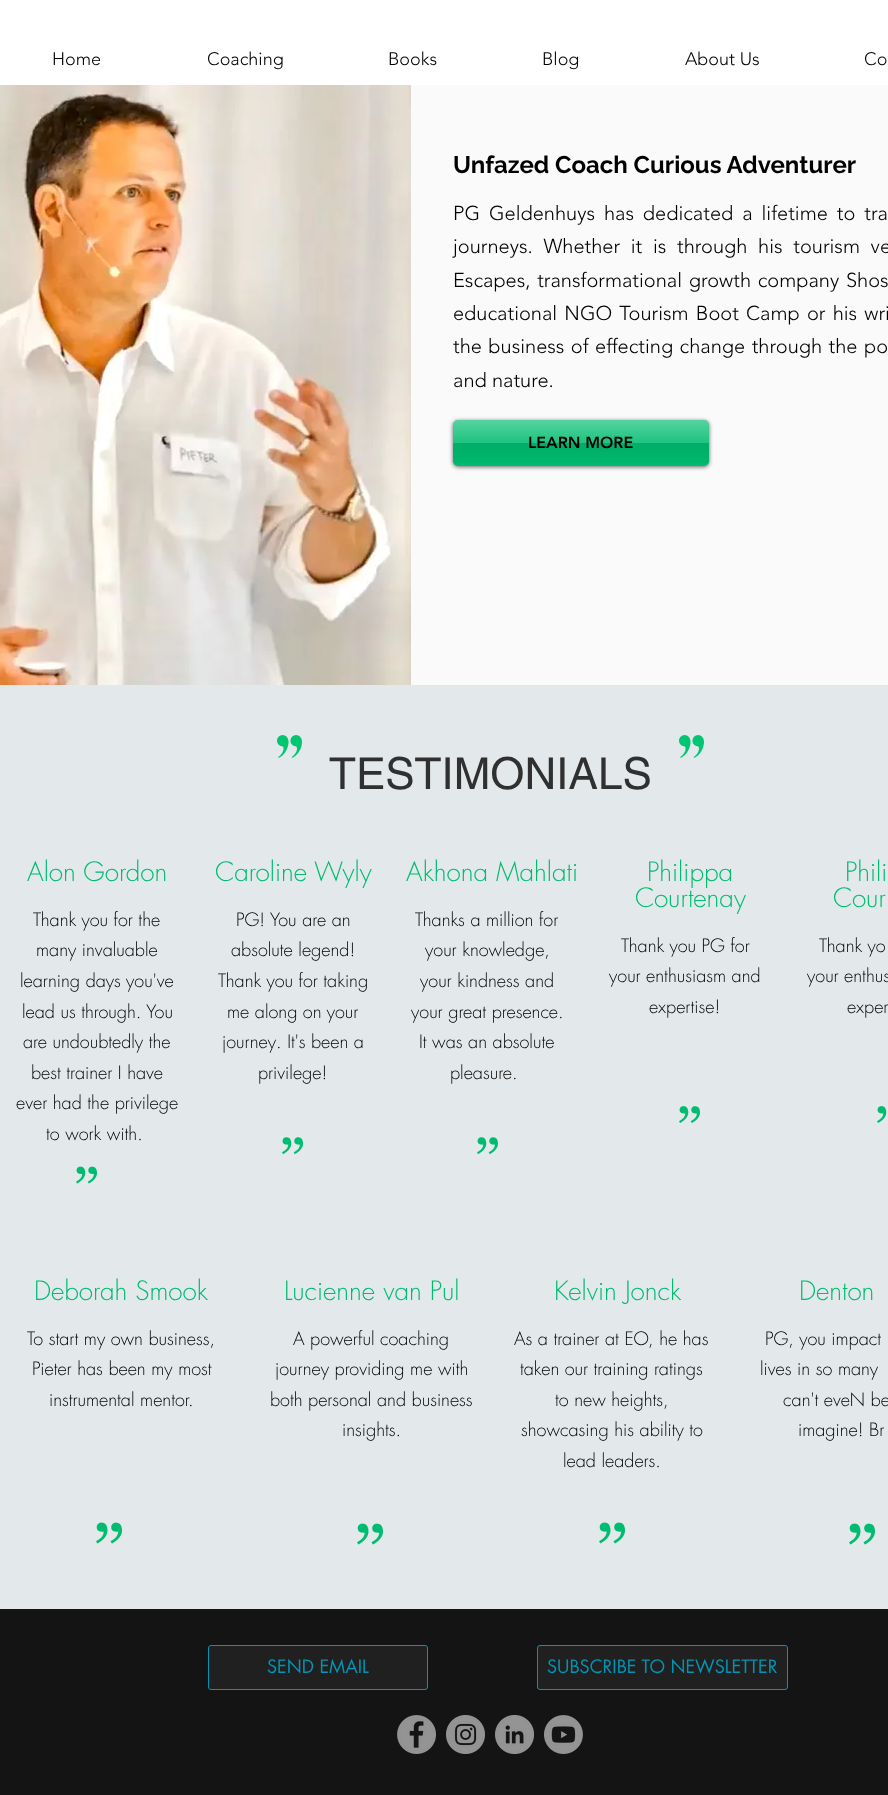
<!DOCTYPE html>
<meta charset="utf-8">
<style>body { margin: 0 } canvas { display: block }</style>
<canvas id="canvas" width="888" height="1795"></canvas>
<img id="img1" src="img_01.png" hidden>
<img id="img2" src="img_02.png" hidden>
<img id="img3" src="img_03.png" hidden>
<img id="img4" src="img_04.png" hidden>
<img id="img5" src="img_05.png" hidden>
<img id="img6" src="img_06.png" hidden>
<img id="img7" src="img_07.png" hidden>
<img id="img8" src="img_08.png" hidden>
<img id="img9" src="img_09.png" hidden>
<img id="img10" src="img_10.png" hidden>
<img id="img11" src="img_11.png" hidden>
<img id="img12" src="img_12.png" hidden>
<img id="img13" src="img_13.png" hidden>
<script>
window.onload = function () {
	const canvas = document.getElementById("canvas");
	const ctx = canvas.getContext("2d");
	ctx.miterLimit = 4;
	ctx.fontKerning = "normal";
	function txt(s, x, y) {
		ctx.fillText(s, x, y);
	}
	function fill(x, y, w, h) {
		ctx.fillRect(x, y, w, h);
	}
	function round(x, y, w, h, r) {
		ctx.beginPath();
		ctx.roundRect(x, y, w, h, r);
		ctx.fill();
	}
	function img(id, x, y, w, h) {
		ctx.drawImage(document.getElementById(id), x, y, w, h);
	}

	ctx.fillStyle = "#FFFFFF";
	fill(0, 0, 888, 1795);
	ctx.fillStyle = "#FAFAFA";
	fill(411, 85, 477, 600);
	img("img1", 0, 85, 411, 600);
	ctx.fillStyle = "rgba(0, 0, 0, 0.6)";
	ctx.filter = "blur(2px)";
	ctx.beginPath();
	ctx.roundRect(453, 421, 256, 46, 5);
	ctx.fill();
	ctx.filter = "none";
	ctx.fillStyle = "#00BC70";
	round(453, 420, 256, 46, 5);
	img("img2", 453, 420, 256, 44);
	ctx.fillStyle = "#E3E9EA";
	fill(0, 685, 888, 924);
	img("img3", 277, 735, 25, 23);
	img("img3", 679, 735, 25, 23);
	img("img4", 76, 1166, 21, 18);
	img("img5", 282, 1137, 21, 18);
	img("img5", 477, 1137, 21, 18);
	img("img6", 679, 1106, 21, 17);
	img("img7", 877, 1106, 10, 17);
	img("img8", 96, 1522, 26, 22);
	img("img8", 357, 1523, 26, 22);
	img("img9", 599, 1522, 26, 22);
	img("img8", 849, 1523, 26, 22);
	ctx.fillStyle = "#141414";
	fill(0, 1609, 888, 186);
	ctx.fillStyle = "#202020";
	ctx.beginPath();
	ctx.roundRect(208.5, 1645.5, 219, 44, 2.5);
	ctx.fill();
	ctx.strokeStyle = "#0095B6";
	ctx.stroke();
	ctx.beginPath();
	ctx.roundRect(537.5, 1645.5, 250, 44, 2.5);
	ctx.fill();
	ctx.stroke();
	img("img10", 397, 1715, 39, 39);
	img("img11", 446, 1715, 39, 39);
	img("img12", 495, 1715, 39, 39);
	img("img13", 544, 1715, 39, 39);
	ctx.font = "300 18px 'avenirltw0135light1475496'";
	ctx.fillStyle = "#000000";
	txt("Home", 52, 65);
	txt("Coaching", 207, 65);
	txt("Books", 388, 65);
	txt("Blog", 542, 65);
	txt("About Us", 685, 65);
	txt("Co", 864, 65);
	ctx.font = "bold 24px Raleway";
	txt("Unfazed Coach Curious Adventurer", 453, 173);
	ctx.wordSpacing = "3.75px";
	ctx.font = "300 20px 'avenirltw0135light1475496'";
	txt("PG Geldenhuys has dedicated a lifetime to tra", 453, 220);
	ctx.wordSpacing = "5.5px";
	txt("journeys. Whether it is through his tourism ve", 453, 253);
	ctx.wordSpacing = "1.5px";
	txt("Escapes, transformational growth company Shos", 453, 287);
	ctx.wordSpacing = "2px";
	txt("educational NGO Tourism Boot Camp or his wri", 453, 320);
	ctx.wordSpacing = "1.25px";
	txt("the business of effecting change through the po", 453, 353);
	ctx.wordSpacing = "0px";
	txt("and nature.", 453, 387);
	ctx.font = "900 16px 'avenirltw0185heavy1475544'";
	txt("LEARN MORE", 528, 448);
	ctx.font = "44px helvetica";
	ctx.fillStyle = "#303030";
	txt("TESTIMONIALS", 329, 789);
	ctx.font = "300 26px futura";
	ctx.fillStyle = "#00BC70";
	txt("Alon Gordon", 27, 881);
	ctx.font = "300 18px futura";
	ctx.fillStyle = "#000000";
	txt("Thank you for the", 33, 926);
	txt("many invaluable", 36, 956);
	txt("learning days you've", 20, 987);
	txt("lead us through. You", 22, 1018);
	txt("are undoubtedly the", 23, 1048);
	txt("best trainer I have", 31, 1079);
	txt("ever had the privilege", 16, 1109);
	txt("to work with.", 46, 1140);
	ctx.font = "300 26px futura";
	ctx.fillStyle = "#00BC70";
	txt("Caroline Wyly", 215, 881);
	ctx.font = "300 18px futura";
	ctx.fillStyle = "#000000";
	txt("PG! You are an", 236, 926);
	txt("absolute legend!", 231, 956);
	txt("Thank you for taking", 218, 987);
	txt("me along on your", 227, 1018);
	txt("journey. It's been a", 222, 1048);
	txt("privilege!", 258, 1079);
	ctx.font = "300 26px futura";
	ctx.fillStyle = "#00BC70";
	txt("Akhona Mahlati", 406, 881);
	ctx.font = "300 18px futura";
	ctx.fillStyle = "#000000";
	txt("Thanks a million for", 415, 926);
	txt("your knowledge,", 425, 956);
	txt("your kindness and", 420, 987);
	txt("your great presence.", 411, 1018);
	txt("It was an absolute", 419, 1048);
	txt("pleasure.", 450, 1079);
	ctx.font = "300 26px futura";
	ctx.fillStyle = "#00BC70";
	txt("Philippa", 647, 881);
	txt("Courtenay", 635, 907);
	ctx.font = "300 18px futura";
	ctx.fillStyle = "#000000";
	txt("Thank you PG for", 621, 952);
	txt("your enthusiasm and", 609, 982);
	txt("expertise!", 649, 1013);
	ctx.font = "300 26px futura";
	ctx.fillStyle = "#00BC70";
	txt("Phili", 845, 881);
	txt("Cour", 833, 907);
	ctx.font = "300 18px futura";
	ctx.fillStyle = "#000000";
	txt("Thank yo", 819, 952);
	txt("your enthus", 807, 982);
	txt("exper", 847, 1013);
	ctx.font = "300 26px futura";
	ctx.fillStyle = "#00BC70";
	txt("Deborah Smook", 34, 1300);
	ctx.font = "300 18px futura";
	ctx.fillStyle = "#000000";
	txt("To start my own business,", 27, 1345);
	txt("Pieter has been my most", 32, 1375);
	txt("instrumental mentor.", 49, 1406);
	ctx.font = "300 26px futura";
	ctx.fillStyle = "#00BC70";
	txt("Lucienne van Pul", 284, 1300);
	ctx.font = "300 18px futura";
	ctx.fillStyle = "#000000";
	txt("A powerful coaching", 293, 1345);
	txt("journey providing me with", 275, 1375);
	txt("both personal and business", 270, 1406);
	txt("insights.", 342, 1436);
	ctx.font = "300 26px futura";
	ctx.fillStyle = "#00BC70";
	txt("Kelvin Jonck", 554, 1300);
	ctx.font = "300 18px futura";
	ctx.fillStyle = "#000000";
	txt("As a trainer at EO, he has", 514, 1345);
	txt("taken our training ratings", 520, 1375);
	txt("to new heights,", 555, 1406);
	txt("showcasing his ability to", 521, 1436);
	txt("lead leaders.", 563, 1467);
	ctx.font = "300 26px futura";
	ctx.fillStyle = "#00BC70";
	txt("Denton", 799, 1300);
	ctx.font = "300 18px futura";
	ctx.fillStyle = "#000000";
	txt("PG, you impact", 765, 1345);
	txt("lives in so many", 760, 1375);
	txt("can't eveN be", 783, 1406);
	txt("imagine! Br", 798, 1436);
	ctx.font = "18px futura";
	ctx.fillStyle = "#0095B6";
	txt("SEND EMAIL", 267, 1673);
	txt("SUBSCRIBE TO NEWSLETTER", 547, 1673);
};
</script>
